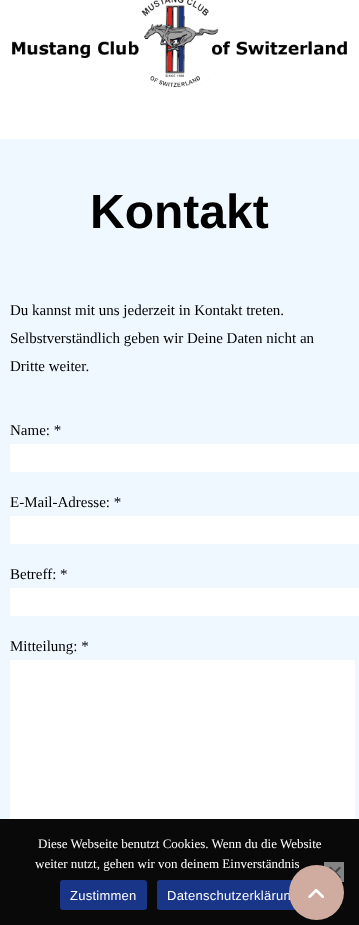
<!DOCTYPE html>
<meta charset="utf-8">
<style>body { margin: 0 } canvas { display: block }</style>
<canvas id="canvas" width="359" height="925"></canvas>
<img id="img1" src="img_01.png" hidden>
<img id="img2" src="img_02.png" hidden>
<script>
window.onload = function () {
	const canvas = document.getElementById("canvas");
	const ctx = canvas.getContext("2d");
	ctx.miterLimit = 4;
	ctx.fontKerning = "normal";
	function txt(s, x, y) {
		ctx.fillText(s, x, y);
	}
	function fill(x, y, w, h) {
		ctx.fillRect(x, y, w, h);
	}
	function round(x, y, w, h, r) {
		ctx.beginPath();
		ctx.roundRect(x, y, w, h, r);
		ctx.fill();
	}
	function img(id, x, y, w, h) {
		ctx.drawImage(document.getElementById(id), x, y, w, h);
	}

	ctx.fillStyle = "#F0F8FF";
	fill(0, 0, 359, 925);
	ctx.fillStyle = "#FFFFFF";
	fill(0, 0, 359, 139);
	img("img1", 12, 0, 335, 87);
	fill(10, 444, 349, 28);
	fill(10, 516, 349, 28);
	fill(10, 588, 349, 28);
	fill(10, 660, 345, 159);
	ctx.fillStyle = "#0A0909";
	fill(0, 819, 359, 106);
	ctx.fillStyle = "#858484";
	fill(324, 862, 20, 20);
	ctx.fillStyle = "#454545";
	ctx.beginPath();
	ctx.moveTo(339.5, 866.5);
	ctx.lineTo(341, 868);
	ctx.lineTo(330.5, 878.5);
	ctx.lineTo(329, 877);
	ctx.closePath();
	ctx.fill();
	ctx.beginPath();
	ctx.moveTo(329, 868);
	ctx.lineTo(330.5, 866.5);
	ctx.lineTo(341, 877);
	ctx.lineTo(339.5, 878.5);
	ctx.closePath();
	ctx.fill();
	ctx.fillStyle = "#193588";
	round(60, 880, 87, 30, 3);
	round(157, 880, 152, 30, 3);
	ctx.font = "bold 48px Liberation Sans";
	ctx.fillStyle = "#000000";
	txt("Kontakt", 90, 228);
	ctx.font = "15px Liberation Serif";
	txt("Du kannst mit uns jederzeit in Kontakt treten.", 10, 315);
	txt("Selbstverständlich geben wir Deine Daten nicht an", 10, 343);
	txt("Dritte weiter.", 10, 371);
	txt("Name: *", 10, 435);
	txt("E-Mail-Adresse: *", 10, 507);
	txt("Betreff: *", 10, 579);
	txt("Mitteilung: *", 10, 651);
	ctx.font = "13px Liberation Serif";
	ctx.fillStyle = "#FFFFFF";
	txt("Diese Webseite benutzt Cookies. Wenn du die Website", 38, 848);
	txt("weiter nutzt, gehen wir von deinem Einverständnis", 35, 868);
	ctx.letterSpacing = "0.25px";
	ctx.font = "13px Liberation Sans";
	txt("Zustimmen", 70, 900);
	txt("Datenschutzerklärun", 167, 900);
	ctx.fillStyle = "#CFAC9F";
	ctx.beginPath();
	ctx.arc(316.5, 892.5, 27.5, 0, Math.PI * 2);
	ctx.fill();
	img("img2", 308, 888, 16, 10);
};
</script>
